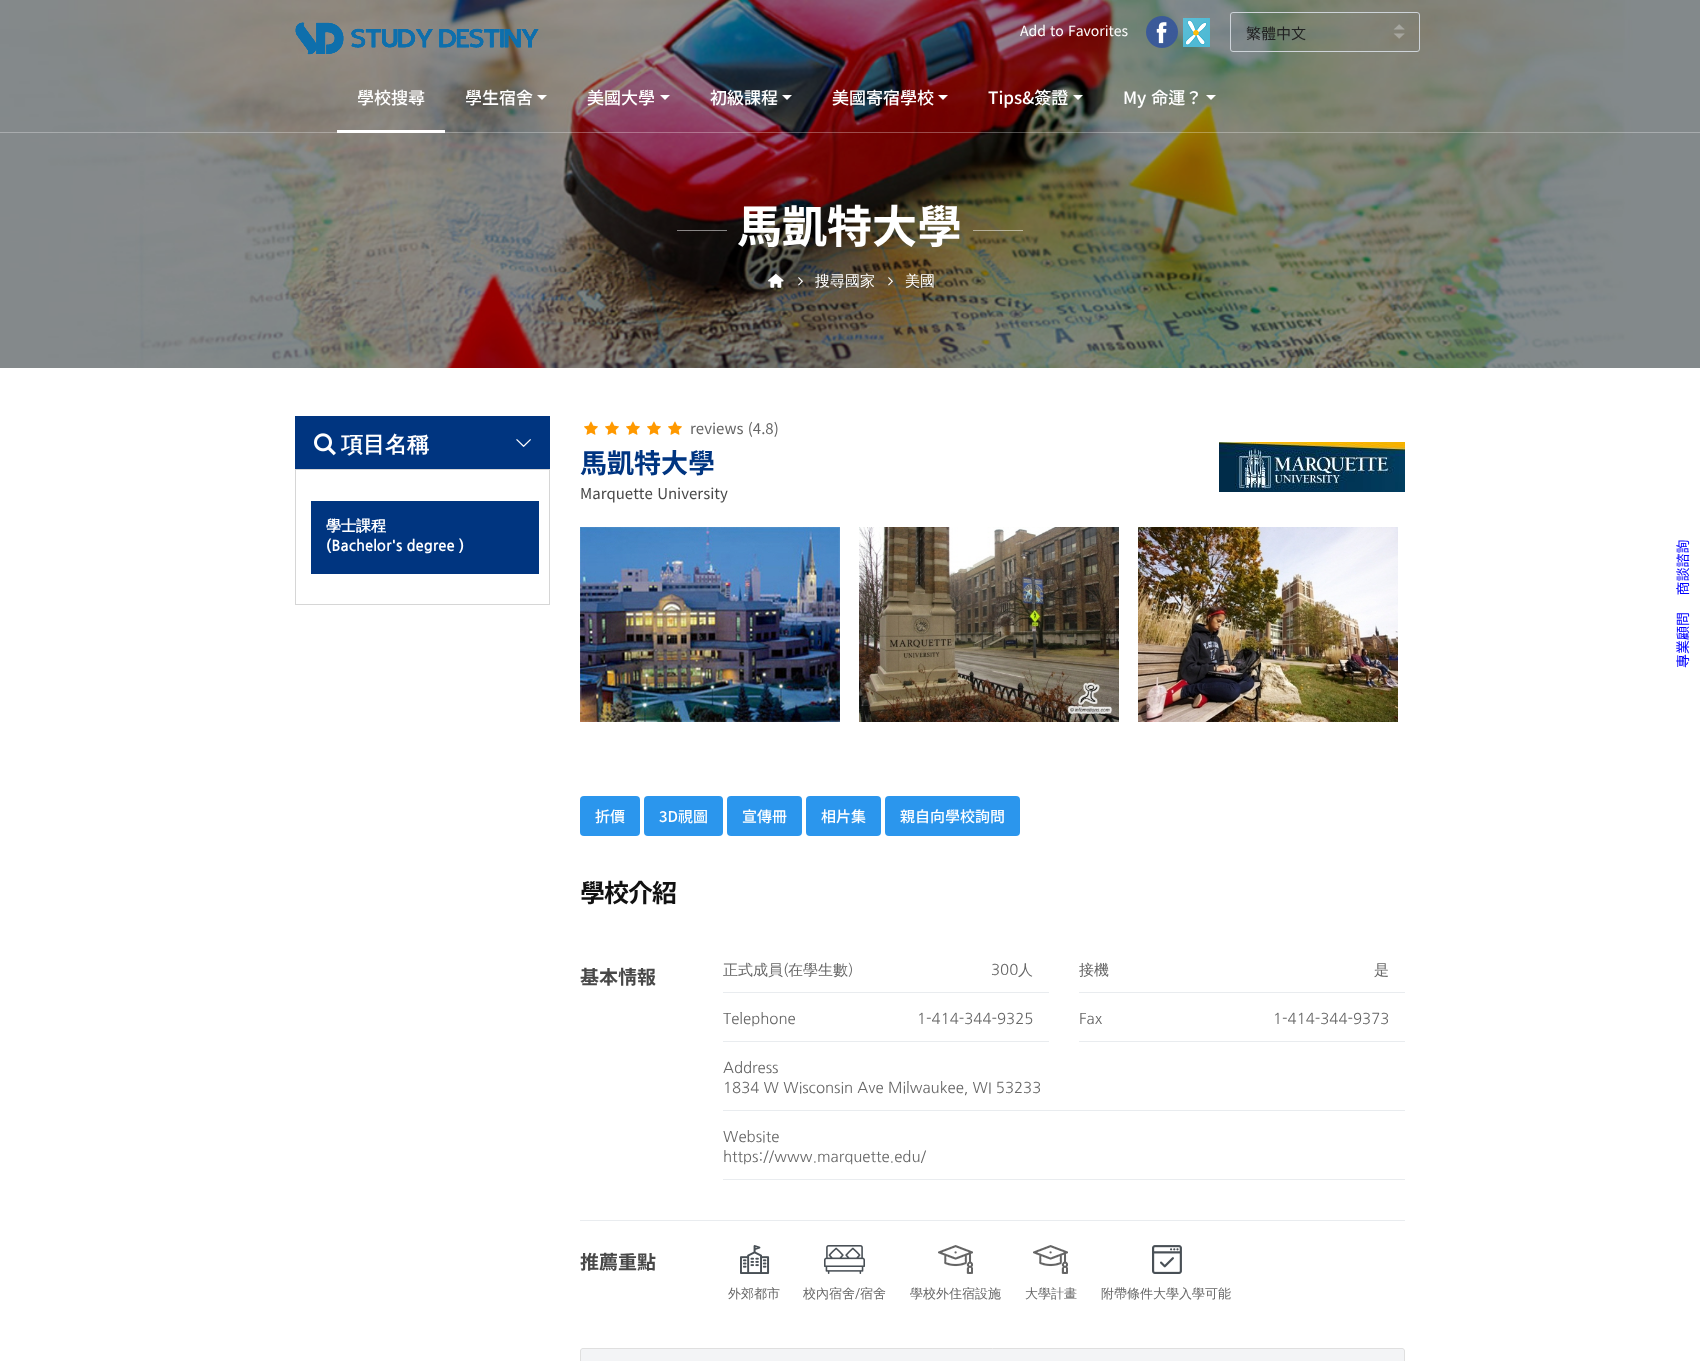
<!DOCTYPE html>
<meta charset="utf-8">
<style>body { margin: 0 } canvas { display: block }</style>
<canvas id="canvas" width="1700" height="1361"></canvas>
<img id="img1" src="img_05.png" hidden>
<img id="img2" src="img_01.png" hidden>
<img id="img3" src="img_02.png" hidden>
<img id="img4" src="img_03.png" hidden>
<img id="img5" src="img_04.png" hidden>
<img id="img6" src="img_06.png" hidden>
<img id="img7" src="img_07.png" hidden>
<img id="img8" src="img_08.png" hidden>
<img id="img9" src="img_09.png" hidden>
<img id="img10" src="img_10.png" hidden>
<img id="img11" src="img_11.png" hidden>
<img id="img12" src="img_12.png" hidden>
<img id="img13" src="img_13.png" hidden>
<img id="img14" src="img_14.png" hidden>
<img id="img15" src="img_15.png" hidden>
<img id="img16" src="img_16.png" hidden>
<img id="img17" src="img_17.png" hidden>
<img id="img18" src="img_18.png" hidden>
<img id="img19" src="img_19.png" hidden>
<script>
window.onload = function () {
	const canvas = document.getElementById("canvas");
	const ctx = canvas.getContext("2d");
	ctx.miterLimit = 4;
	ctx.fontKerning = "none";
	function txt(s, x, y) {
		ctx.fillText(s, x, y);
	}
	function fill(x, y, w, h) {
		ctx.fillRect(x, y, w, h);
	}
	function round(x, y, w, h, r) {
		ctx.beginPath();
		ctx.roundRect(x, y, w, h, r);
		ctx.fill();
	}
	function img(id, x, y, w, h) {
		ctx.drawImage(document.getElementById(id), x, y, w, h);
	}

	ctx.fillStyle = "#FFFFFF";
	fill(0, 0, 1700, 1361);
	img("img1", 0, 0, 1700, 368);
	ctx.fillStyle = "rgba(255, 255, 255, 0.3)";
	fill(0, 132, 1700, 1);
	img("img2", 295, 22, 244, 33);
	img("img3", 1146, 16, 32, 32);
	img("img4", 1183, 18, 27, 29);
	img("img5", 1393, 24, 12, 15);
	ctx.beginPath();
	ctx.roundRect(1230.5, 12.5, 189, 39, 2.5);
	ctx.strokeStyle = "#CED4DA";
	ctx.stroke();
	ctx.fillStyle = "#FFFFFF";
	fill(337, 130, 108, 3);
	ctx.beginPath();
	ctx.moveTo(537, 95);
	ctx.lineTo(547, 95);
	ctx.lineTo(542, 100);
	ctx.closePath();
	ctx.fill();
	ctx.beginPath();
	ctx.moveTo(660, 95);
	ctx.lineTo(670, 95);
	ctx.lineTo(665, 100);
	ctx.closePath();
	ctx.fill();
	ctx.beginPath();
	ctx.moveTo(782, 95);
	ctx.lineTo(792, 95);
	ctx.lineTo(787, 100);
	ctx.closePath();
	ctx.fill();
	ctx.beginPath();
	ctx.moveTo(938, 95);
	ctx.lineTo(948, 95);
	ctx.lineTo(943, 100);
	ctx.closePath();
	ctx.fill();
	ctx.beginPath();
	ctx.moveTo(1073, 95);
	ctx.lineTo(1083, 95);
	ctx.lineTo(1078, 100);
	ctx.closePath();
	ctx.fill();
	ctx.beginPath();
	ctx.moveTo(1206, 95);
	ctx.lineTo(1216, 95);
	ctx.lineTo(1211, 100);
	ctx.closePath();
	ctx.fill();
	ctx.fillStyle = "rgba(255, 255, 255, 0.5)";
	fill(677, 230, 50, 1);
	fill(973, 230, 50, 1);
	img("img6", 768, 273, 16, 15);
	img("img7", 798, 277, 5, 9);
	img("img8", 888, 277, 5, 9);
	ctx.fillStyle = "#003580";
	fill(295, 416, 255, 53);
	img("img9", 314, 433, 22, 23);
	img("img10", 516, 439, 15, 8);
	ctx.strokeStyle = "#D6D6D6";
	ctx.strokeRect(295.5, 469.5, 254, 135);
	fill(311, 501, 228, 73);
	img("img11", 584, 421, 14, 14);
	img("img11", 605, 421, 14, 14);
	img("img11", 626, 421, 14, 14);
	img("img11", 647, 421, 14, 14);
	img("img11", 668, 421, 14, 14);
	img("img12", 1219, 442, 186, 50);
	img("img13", 580, 527, 260, 195);
	img("img14", 859, 527, 260, 195);
	img("img15", 1138, 527, 260, 195);
	ctx.fillStyle = "#2B96ED";
	round(580, 796, 60, 40, 4);
	round(644, 796, 79, 40, 4);
	round(727, 796, 75, 40, 4);
	round(806, 796, 75, 40, 4);
	round(885, 796, 135, 40, 4);
	ctx.fillStyle = "#E9ECEF";
	fill(580, 1220, 825, 1);
	fill(723, 992, 326, 1);
	fill(1079, 992, 326, 1);
	fill(723, 1041, 326, 1);
	fill(1079, 1041, 326, 1);
	fill(723, 1110, 682, 1);
	fill(723, 1179, 682, 1);
	img("img16", 740, 1245, 30, 29);
	img("img17", 824, 1245, 41, 29);
	img("img18", 938, 1245, 35, 29);
	img("img18", 1033, 1245, 35, 29);
	img("img19", 1152, 1245, 30, 29);
	ctx.fillStyle = "#F3F4F6";
	ctx.beginPath();
	ctx.moveTo(583, 1348.5);
	ctx.lineTo(1402, 1348.5);
	ctx.bezierCurveTo(1403.5, 1348.5, 1404.5, 1349.5, 1404.5, 1351);
	ctx.lineTo(1404.5, 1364.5);
	ctx.lineTo(580.5, 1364.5);
	ctx.lineTo(580.5, 1351);
	ctx.bezierCurveTo(580.5, 1349.5, 581.5, 1348.5, 583, 1348.5);
	ctx.closePath();
	ctx.fill();
	ctx.strokeStyle = "#DFDFDF";
	ctx.stroke();
	ctx.wordSpacing = "1px";
	ctx.font = "14px Noto Sans KR";
	ctx.fillStyle = "#FFFFFF";
	txt("Add to Favorites", 1020, 36);
	ctx.wordSpacing = "0px";
	ctx.font = "15px Noto Sans KR";
	ctx.fillStyle = "#222222";
	txt("繁體中文", 1246, 39);
	ctx.font = "500 17px Noto Sans KR";
	ctx.fillStyle = "#FFFFFF";
	txt("學校搜尋", 357, 104);
	txt("學生宿舍", 465, 104);
	txt("美國大學", 587, 104);
	txt("初級課程", 710, 104);
	txt("美國寄宿學校", 832, 104);
	txt("Tips&簽證", 988, 104);
	ctx.wordSpacing = "1px";
	txt("My 命運？", 1123, 104);
	ctx.font = "14px Noto Sans KR";
	ctx.fillStyle = "#0000FF";
	ctx.save();
	ctx.translate(1688, 668);
	ctx.rotate(-90 * Math.PI / 180);
	ctx.fillText("專業顧問    商談諮詢", 0, 0);
	ctx.restore();
	ctx.wordSpacing = "0px";
	ctx.font = "bold 45px Noto Sans KR";
	ctx.fillStyle = "#FFFFFF";
	txt("馬凱特大學", 737, 243);
	ctx.font = "500 15px WenQuanYi Zen Hei";
	txt("搜尋國家", 815, 286);
	txt("美國", 905, 286);
	ctx.font = "bold 22px WenQuanYi Zen Hei";
	txt("項目名稱", 341, 452);
	ctx.font = "bold 15px WenQuanYi Zen Hei";
	txt("學士課程", 326, 531);
	ctx.font = "bold 15px NanumGothic";
	txt("(Bachelor's degree )", 326, 551);
	ctx.wordSpacing = "1px";
	ctx.font = "15px Noto Sans KR";
	ctx.fillStyle = "#666666";
	txt("reviews (4.8)", 690, 434);
	ctx.wordSpacing = "0px";
	ctx.font = "bold 27px Noto Sans KR";
	ctx.fillStyle = "#003581";
	txt("馬凱特大學", 580, 473);
	ctx.wordSpacing = "1px";
	ctx.font = "15px Noto Sans KR";
	ctx.fillStyle = "#484848";
	txt("Marquette University", 580, 499);
	ctx.wordSpacing = "0px";
	ctx.font = "500 15px Noto Sans KR";
	ctx.fillStyle = "#FFFFFF";
	txt("折價", 595, 822);
	txt("3D視圖", 659, 822);
	txt("宣傳冊", 742, 822);
	txt("相片集", 821, 822);
	txt("親自向學校詢問", 900, 822);
	ctx.letterSpacing = "-1px";
	ctx.font = "bold 25px Noto Sans KR";
	ctx.fillStyle = "#111111";
	txt("學校介紹", 580, 902);
	ctx.letterSpacing = "0px";
	ctx.font = "bold 19px Noto Sans KR";
	ctx.fillStyle = "#484848";
	txt("基本情報", 580, 984);
	ctx.font = "500 15px WenQuanYi Zen Hei";
	ctx.fillStyle = "#666666";
	txt("正式成員", 723, 975);
	ctx.font = "15px NanumGothic";
	txt("(", 783, 975);
	ctx.font = "500 15px WenQuanYi Zen Hei";
	txt("在學生數", 788, 975);
	ctx.font = "15px NanumGothic";
	txt(")", 848, 975);
	txt("300", 991, 975);
	ctx.font = "500 15px WenQuanYi Zen Hei";
	txt("人", 1018, 975);
	txt("接機", 1079, 975);
	txt("是", 1374, 975);
	ctx.font = "15px NanumGothic";
	txt("Telephone", 723, 1024);
	txt("1-414-344-9325", 917, 1024);
	txt("Fax", 1079, 1024);
	txt("1-414-344-9373", 1273, 1024);
	txt("Address", 723, 1073);
	txt("1834 W Wisconsin Ave Milwaukee, WI 53233", 723, 1093);
	txt("Website", 723, 1142);
	txt("https://www.marquette.edu/", 723, 1162);
	ctx.font = "bold 19px Noto Sans KR";
	ctx.fillStyle = "#484848";
	txt("推薦重點", 580, 1269);
	ctx.font = "500 13px WenQuanYi Zen Hei";
	ctx.fillStyle = "#666666";
	txt("外郊都市", 728, 1298);
	txt("校內宿舍", 803, 1298);
	ctx.font = "13px NanumGothic";
	txt("/", 855, 1298);
	ctx.font = "500 13px WenQuanYi Zen Hei";
	txt("宿舍", 860, 1298);
	txt("學校外住宿設施", 910, 1298);
	txt("大學計畫", 1025, 1298);
	txt("附帶條件大學入學可能", 1101, 1298);
};
</script>
